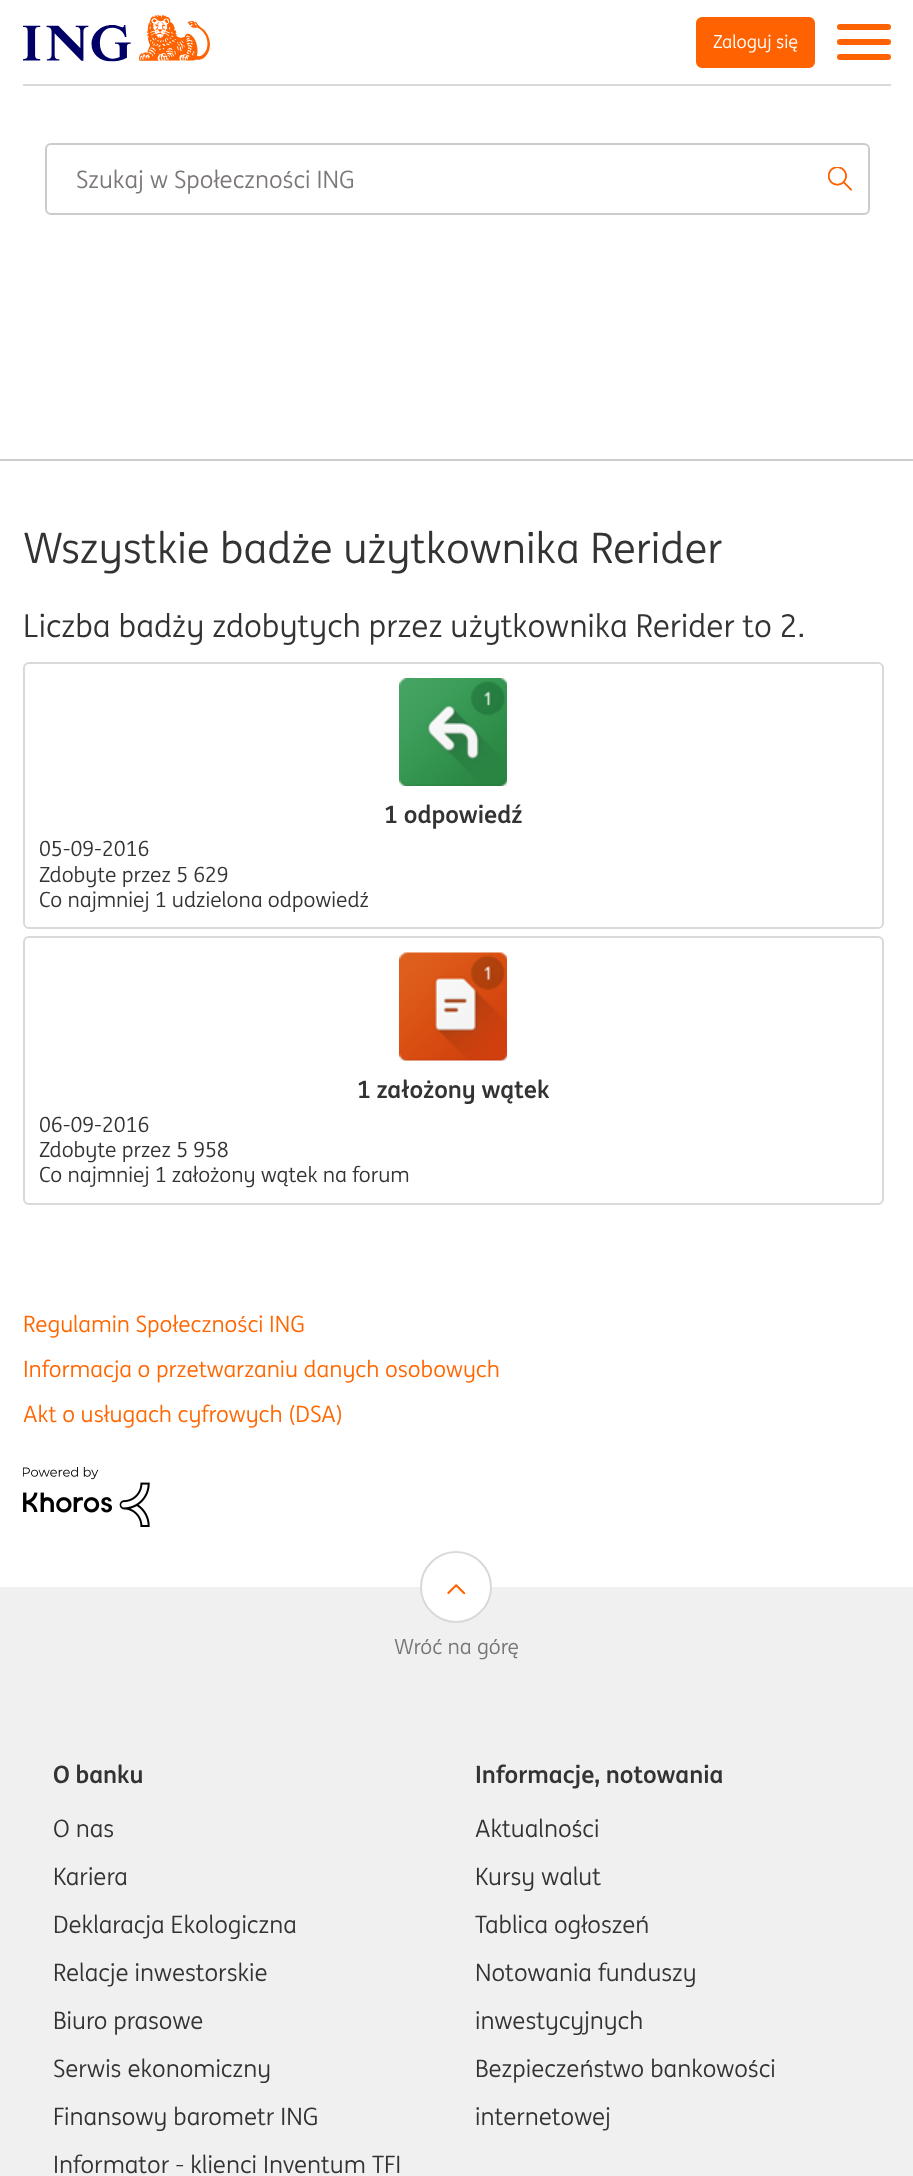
<!DOCTYPE html>
<meta charset="utf-8">
<style>body { margin: 0 } canvas { display: block }</style>
<canvas id="canvas" width="913" height="2176"></canvas>
<img id="img1" src="img_01.png" hidden>
<img id="img2" src="img_02.png" hidden>
<img id="img3" src="img_03.png" hidden>
<img id="img4" src="img_04.png" hidden>
<img id="img5" src="img_05.png" hidden>
<img id="img6" src="img_06.png" hidden>
<script>
window.onload = function () {
	const canvas = document.getElementById("canvas");
	const ctx = canvas.getContext("2d");
	ctx.miterLimit = 4;
	ctx.fontKerning = "normal";
	function txt(s, x, y) {
		ctx.fillText(s, x, y);
	}
	function fill(x, y, w, h) {
		ctx.fillRect(x, y, w, h);
	}
	function round(x, y, w, h, r) {
		ctx.beginPath();
		ctx.roundRect(x, y, w, h, r);
		ctx.fill();
	}
	function img(id, x, y, w, h) {
		ctx.drawImage(document.getElementById(id), x, y, w, h);
	}

	ctx.fillStyle = "#FFFFFF";
	fill(0, 0, 913, 2176);
	ctx.fillStyle = "#D9D9D9";
	fill(23, 84, 868, 2);
	img("img1", 23, 15, 187, 47);
	ctx.fillStyle = "#FF6200";
	ctx.beginPath();
	ctx.roundRect(697, 18, 117, 49, 5);
	ctx.fill();
	ctx.strokeStyle = "#FF6200";
	ctx.lineWidth = 2;
	ctx.stroke();
	round(837, 39, 54, 6, 3);
	round(837, 24, 54, 6, 3);
	round(837, 54, 54, 6, 3);
	ctx.beginPath();
	ctx.roundRect(46, 144, 823, 70, 5);
	ctx.strokeStyle = "#CCCCCC";
	ctx.stroke();
	img("img2", 828, 167, 24, 24);
	ctx.fillStyle = "#CCCCCC";
	fill(0, 459, 913, 2);
	ctx.beginPath();
	ctx.roundRect(24, 663, 859, 265, 5);
	ctx.strokeStyle = "#D9D9D9";
	ctx.stroke();
	img("img3", 399, 678, 108, 108);
	ctx.beginPath();
	ctx.roundRect(24, 937, 859, 267, 5);
	ctx.stroke();
	img("img4", 399, 952, 108, 109);
	img("img5", 23, 1467, 127, 60);
	ctx.fillStyle = "#F0F0F0";
	fill(0, 1587, 913, 589);
	ctx.fillStyle = "#FFFFFF";
	ctx.beginPath();
	ctx.arc(456, 1587, 35, 0, Math.PI * 2);
	ctx.fill();
	ctx.stroke();
	img("img6", 447, 1584, 19, 11);
	ctx.font = "18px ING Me";
	txt("Zaloguj się", 713, 48);
	ctx.font = "24px ING Me";
	ctx.fillStyle = "#7D7878";
	txt("Szukaj w Społeczności ING", 76, 188);
	ctx.font = "42px ING Me";
	ctx.fillStyle = "#333333";
	txt("Wszystkie badże użytkownika Rerider", 23, 563);
	ctx.font = "31.5px ING Me";
	txt("Liczba badży zdobytych przez użytkownika Rerider to 2.", 23, 637);
	ctx.font = "bold 24px ING Me";
	txt("1 odpowiedź", 384, 823);
	ctx.font = "21px ING Me";
	txt("05-09-2016", 39, 856);
	txt("Zdobyte przez 5 629", 39, 882);
	txt("Co najmniej 1 udzielona odpowiedź", 39, 907);
	ctx.font = "bold 24px ING Me";
	txt("1 założony wątek", 357, 1098);
	ctx.font = "21px ING Me";
	txt("06-09-2016", 39, 1132);
	txt("Zdobyte przez 5 958", 39, 1157);
	txt("Co najmniej 1 założony wątek na forum", 39, 1182);
	ctx.font = "22.5px ING Me";
	ctx.fillStyle = "#FF6600";
	txt("Regulamin Społeczności ING", 23, 1332);
	txt("Informacja o przetwarzaniu danych osobowych", 23, 1377);
	txt("Akt o usługach cyfrowych (DSA)", 23, 1422);
	ctx.font = "21px ING Me";
	ctx.fillStyle = "#767676";
	txt("Wróć na górę", 394, 1654);
	ctx.font = "bold 24px ING Me";
	ctx.fillStyle = "#333333";
	txt("O banku", 53, 1783);
	ctx.font = "24px ING Me";
	txt("O nas", 53, 1837);
	txt("Kariera", 53, 1885);
	txt("Deklaracja Ekologiczna", 53, 1933);
	txt("Relacje inwestorskie", 53, 1981);
	txt("Biuro prasowe", 53, 2029);
	txt("Serwis ekonomiczny", 53, 2077);
	txt("Finansowy barometr ING", 53, 2125);
	txt("Informator - klienci Inventum TFI", 53, 2173);
	ctx.font = "bold 24px ING Me";
	txt("Informacje, notowania", 475, 1783);
	ctx.font = "24px ING Me";
	txt("Aktualności", 475, 1837);
	txt("Kursy walut", 475, 1885);
	txt("Tablica ogłoszeń", 475, 1933);
	txt("Notowania funduszy", 475, 1981);
	txt("inwestycyjnych", 475, 2029);
	txt("Bezpieczeństwo bankowości", 475, 2077);
	txt("internetowej", 475, 2125);
};
</script>
